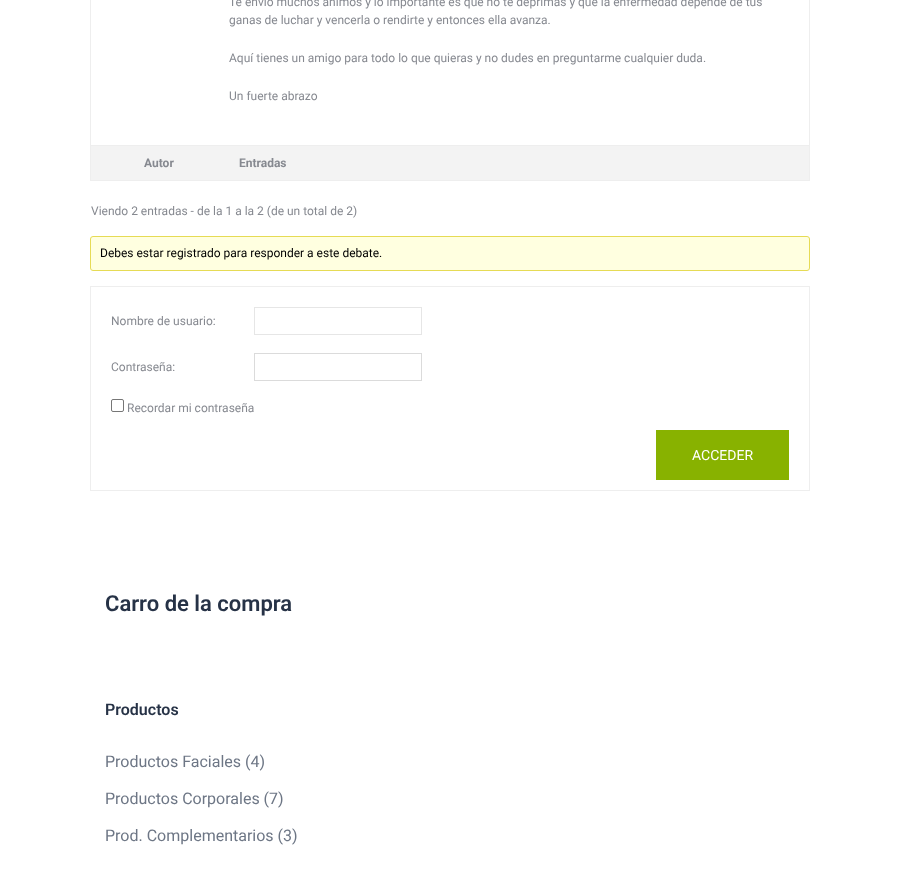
<!DOCTYPE html>
<meta charset="utf-8">
<style>body { margin: 0 } canvas { display: block }</style>
<canvas id="canvas" width="900" height="873"></canvas>
<script>
window.onload = function () {
	const canvas = document.getElementById("canvas");
	const ctx = canvas.getContext("2d");
	ctx.miterLimit = 4;
	ctx.fontKerning = "normal";
	function txt(s, x, y) {
		ctx.fillText(s, x, y);
	}
	function fill(x, y, w, h) {
		ctx.fillRect(x, y, w, h);
	}

	ctx.fillStyle = "#FFFFFF";
	fill(0, 0, 900, 873);
	ctx.strokeStyle = "#EEEEEE";
	ctx.strokeRect(90.5, -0.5, 719, 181);
	ctx.fillStyle = "#F3F3F3";
	fill(91, 146, 718, 34);
	ctx.fillStyle = "#EEEEEE";
	fill(91, 145, 718, 1);
	ctx.fillStyle = "#FFFFE0";
	ctx.beginPath();
	ctx.roundRect(90.5, 236.5, 719, 34, 2.5);
	ctx.fill();
	ctx.strokeStyle = "#E6DB55";
	ctx.stroke();
	ctx.strokeStyle = "#EEEEEE";
	ctx.strokeRect(90.5, 286.5, 719, 204);
	ctx.strokeStyle = "#E6E6E6";
	ctx.strokeRect(254.5, 307.5, 167, 27);
	ctx.strokeStyle = "#DBDBDB";
	ctx.strokeRect(254.5, 353.5, 167, 27);
	ctx.beginPath();
	ctx.roundRect(111.5, 399.5, 12, 12, 1.5);
	ctx.strokeStyle = "#767676";
	ctx.stroke();
	ctx.fillStyle = "#88B200";
	fill(656, 430, 133, 50);
	ctx.font = "12px Roboto";
	ctx.fillStyle = "#868990";
	txt("Te envío muchos ánimos y lo importante es que no te deprimas y que la enfermedad depende de tus", 229, 6);
	txt("ganas de luchar y vencerla o rendirte y entonces ella avanza.", 229, 24);
	txt("Aquí tienes un amigo para todo lo que quieras y no dudes en preguntarme cualquier duda.", 229, 62);
	txt("Un fuerte abrazo", 229, 100);
	ctx.font = "bold 12px Roboto";
	txt("Autor", 144, 167);
	txt("Entradas", 239, 167);
	ctx.font = "12px Roboto";
	txt("Viendo 2 entradas - de la 1 a la 2 (de un total de 2)", 91, 215);
	ctx.fillStyle = "#000000";
	txt("Debes estar registrado para responder a este debate.", 100, 257);
	ctx.fillStyle = "#868990";
	txt("Nombre de usuario:", 111, 325);
	txt("Contraseña:", 111, 371);
	txt("Recordar mi contraseña", 127, 412);
	ctx.font = "14px Roboto";
	ctx.fillStyle = "#FFFFFF";
	txt("ACCEDER", 692, 460);
	ctx.font = "600 22px Roboto";
	ctx.fillStyle = "#263246";
	txt("Carro de la compra", 105, 611);
	ctx.font = "600 16px Roboto";
	txt("Productos", 105, 715);
	ctx.font = "16px Roboto";
	ctx.fillStyle = "#6D7685";
	txt("Productos Faciales (4)", 105, 767);
	txt("Productos Corporales (7)", 105, 804);
	txt("Prod. Complementarios (3)", 105, 841);
};
</script>
